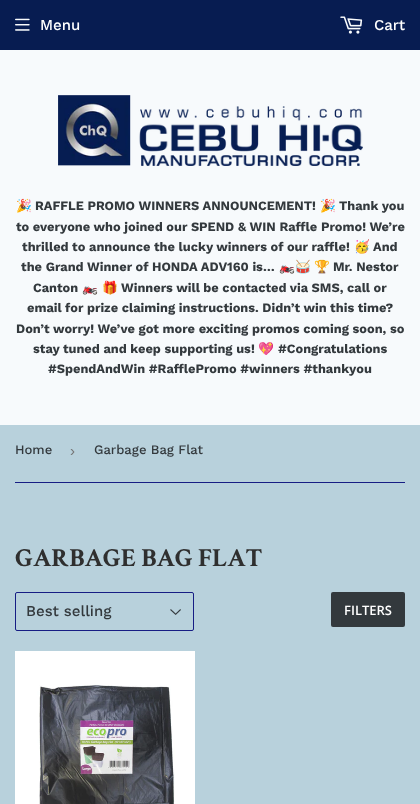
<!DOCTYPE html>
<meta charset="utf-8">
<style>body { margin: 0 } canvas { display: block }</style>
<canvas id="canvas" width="420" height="804"></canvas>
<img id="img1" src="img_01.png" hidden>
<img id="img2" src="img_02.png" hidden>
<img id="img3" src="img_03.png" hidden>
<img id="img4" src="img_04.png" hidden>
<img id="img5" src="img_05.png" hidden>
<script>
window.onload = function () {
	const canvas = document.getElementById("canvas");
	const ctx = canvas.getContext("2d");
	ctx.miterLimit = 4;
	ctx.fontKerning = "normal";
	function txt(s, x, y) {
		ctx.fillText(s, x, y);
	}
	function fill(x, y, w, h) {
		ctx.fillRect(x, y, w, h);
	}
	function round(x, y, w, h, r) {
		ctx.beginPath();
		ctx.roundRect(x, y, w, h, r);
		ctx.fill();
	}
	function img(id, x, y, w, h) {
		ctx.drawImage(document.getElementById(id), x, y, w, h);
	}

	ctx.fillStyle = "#B8D1DC";
	fill(0, 0, 420, 804);
	ctx.fillStyle = "#071C51";
	fill(0, 0, 420, 50);
	img("img1", 15, 18, 15, 13);
	img("img2", 340, 16, 23, 18);
	ctx.fillStyle = "#F7FAFC";
	fill(0, 50, 420, 375);
	img("img3", 58, 95, 305, 71);
	ctx.fillStyle = "#161D84";
	fill(15, 482, 390, 1);
	img("img4", 170, 609, 11, 6);
	ctx.beginPath();
	ctx.roundRect(15.5, 592.5, 178, 38, 1.5);
	ctx.strokeStyle = "#161D84";
	ctx.stroke();
	ctx.fillStyle = "#33393D";
	round(331, 592, 74, 35, 2);
	img("img5", 15, 651, 180, 153);
	ctx.font = "500 15px Work Sans";
	ctx.fillStyle = "#FFFFFF";
	txt("Menu", 40, 30);
	txt("Cart", 374, 30);
	ctx.font = "bold 12.75px Noto Color Emoji";
	ctx.fillStyle = "#33393D";
	txt("🎉", 16, 210);
	ctx.font = "bold 12.75px Work Sans";
	txt("RAFFLE PROMO WINNERS ANNOUNCEMENT!", 35, 210);
	ctx.font = "bold 12.75px Noto Color Emoji";
	txt("🎉", 320, 210);
	ctx.font = "bold 12.75px Work Sans";
	txt("Thank you", 339, 210);
	txt("to everyone who joined our SPEND & WIN Raffle Promo! We’re", 16, 231);
	txt("thrilled to announce the lucky winners of our raffle!", 22, 251);
	ctx.font = "bold 12.75px Noto Color Emoji";
	txt("🥳", 354, 251);
	ctx.font = "bold 12.75px Work Sans";
	txt("And", 373, 251);
	txt("the Grand Winner of HONDA ADV160 is…", 21, 271);
	ctx.font = "bold 12.75px Noto Color Emoji";
	txt("🏍🥁", 279, 271);
	txt("🏆", 314, 271);
	ctx.font = "bold 12.75px Work Sans";
	txt("Mr. Nestor", 333, 271);
	txt("Canton", 33, 292);
	ctx.font = "bold 12.75px Noto Color Emoji";
	txt("🏍", 82, 292);
	txt("🎁", 102, 292);
	ctx.font = "bold 12.75px Work Sans";
	txt("Winners will be contacted via SMS, call or", 121, 292);
	txt("email for prize claiming instructions. Didn’t win this time?", 27, 312);
	txt("Don’t worry! We’ve got more exciting promos coming soon, so", 16, 333);
	txt("stay tuned and keep supporting us!", 33, 353);
	ctx.font = "bold 12.75px Noto Color Emoji";
	txt("💖", 258, 353);
	ctx.font = "bold 12.75px Work Sans";
	txt("#Congratulations", 278, 353);
	txt("#SpendAndWin #RafflePromo #winners #thankyou", 48, 373);
	ctx.font = "500 13px Work Sans";
	txt("Home", 15, 454);
	ctx.font = "15px Liberation Sans";
	ctx.fillStyle = "#767676";
	txt("›", 70, 456);
	ctx.font = "500 13px Work Sans";
	ctx.fillStyle = "#33393D";
	txt("Garbage Bag Flat", 94, 454);
	ctx.font = "bold 26px Crimson Text";
	ctx.fillStyle = "#2F2F2F";
	txt("GARBAGE BAG FLAT", 15, 566);
	ctx.font = "500 15px Work Sans";
	ctx.fillStyle = "#33393D";
	txt("Best selling", 26, 616);
	ctx.font = "600 13px Open Sans";
	ctx.fillStyle = "#FFFFFF";
	txt("FILTERS", 344, 615);
};
</script>
